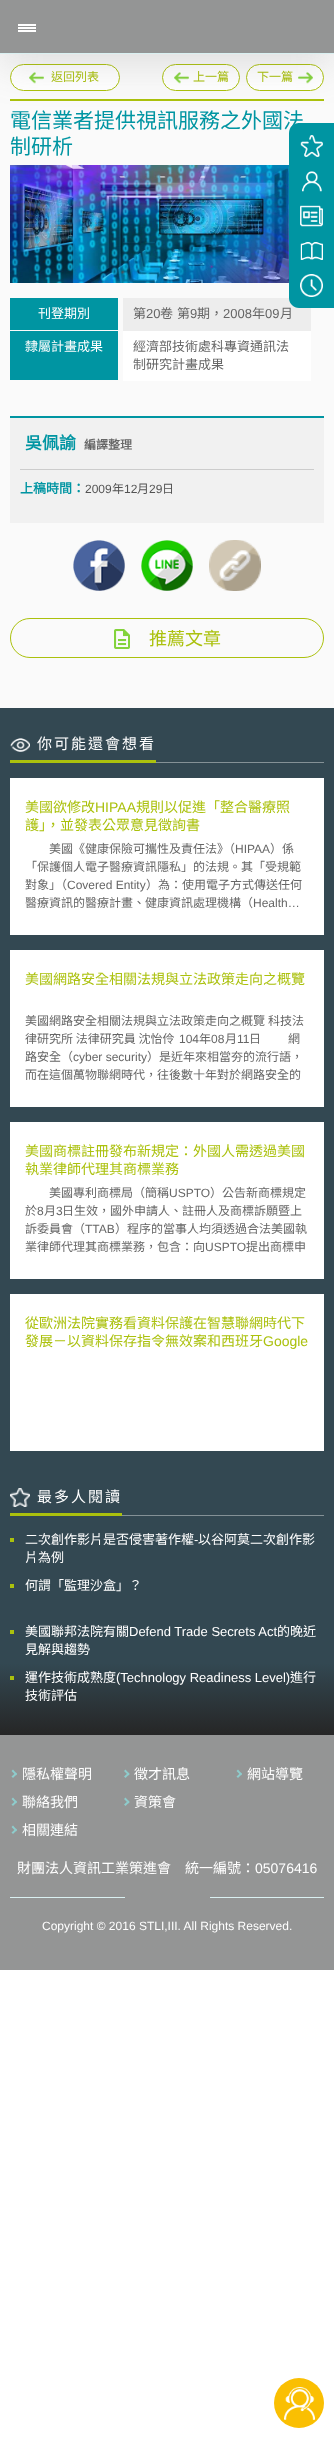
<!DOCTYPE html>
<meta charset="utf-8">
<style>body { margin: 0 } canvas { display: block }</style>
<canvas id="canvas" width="334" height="2438"></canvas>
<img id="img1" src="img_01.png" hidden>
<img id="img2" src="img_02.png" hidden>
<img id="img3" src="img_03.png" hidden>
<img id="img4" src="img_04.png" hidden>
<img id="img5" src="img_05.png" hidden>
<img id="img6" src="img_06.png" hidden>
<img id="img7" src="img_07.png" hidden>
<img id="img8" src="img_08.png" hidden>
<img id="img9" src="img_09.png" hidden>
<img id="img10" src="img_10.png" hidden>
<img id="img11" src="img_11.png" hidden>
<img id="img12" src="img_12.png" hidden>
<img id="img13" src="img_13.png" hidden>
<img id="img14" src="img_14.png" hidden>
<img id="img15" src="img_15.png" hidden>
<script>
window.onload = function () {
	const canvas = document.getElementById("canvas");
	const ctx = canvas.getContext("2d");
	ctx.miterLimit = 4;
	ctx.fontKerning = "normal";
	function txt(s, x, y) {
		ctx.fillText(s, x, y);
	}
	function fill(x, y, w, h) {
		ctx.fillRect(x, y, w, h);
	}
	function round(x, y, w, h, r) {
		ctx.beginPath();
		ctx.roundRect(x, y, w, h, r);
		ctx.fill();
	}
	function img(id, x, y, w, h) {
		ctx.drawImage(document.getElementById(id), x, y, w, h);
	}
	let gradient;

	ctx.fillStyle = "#FFFFFF";
	fill(0, 0, 334, 2438);
	ctx.fillStyle = "#FAFAFA";
	fill(0, 54, 334, 654);
	ctx.fillStyle = "#FFFFFF";
	round(10, 64, 110, 27, 13.5);
	img("img1", 29, 72, 15, 12);
	ctx.beginPath();
	ctx.roundRect(10.5, 64.5, 109, 26, 13);
	ctx.strokeStyle = "#ABC10D";
	ctx.stroke();
	round(162, 64, 78, 27, 13.5);
	img("img1", 174, 72, 15, 12);
	ctx.beginPath();
	ctx.roundRect(162.5, 64.5, 77, 26, 13);
	ctx.stroke();
	round(246, 64, 78, 27, 13.5);
	img("img2", 298, 72, 15, 12);
	ctx.beginPath();
	ctx.roundRect(246.5, 64.5, 77, 26, 13);
	ctx.stroke();
	ctx.fillStyle = "#ABC10D";
	fill(10, 99, 314, 2);
	img("img3", 10, 165, 279, 118);
	ctx.fillStyle = "#0095A2";
	fill(10, 298, 108, 32);
	ctx.fillStyle = "#EDEDED";
	fill(123, 298, 188, 33);
	ctx.fillStyle = "#0095A2";
	fill(10, 331, 108, 49);
	ctx.fillStyle = "#FFFFFF";
	fill(123, 331, 188, 50);
	ctx.fillStyle = "#F1F1F1";
	fill(10, 418, 314, 105);
	ctx.fillStyle = "#0095A2";
	fill(10, 416, 314, 2);
	ctx.fillStyle = "#CCCCCC";
	fill(20, 469, 294, 1);
	img("img4", 73, 540, 52, 51);
	img("img5", 141, 540, 52, 51);
	img("img6", 209, 540, 52, 51);
	ctx.beginPath();
	ctx.roundRect(10.5, 618.5, 313, 39, 19.5);
	ctx.stroke();
	img("img7", 114, 629, 16, 20);
	gradient = ctx.createLinearGradient(167, 708, 167, 1735);
	gradient.addColorStop(0.93, "#334852");
	gradient.addColorStop(1, "#262626");
	ctx.fillStyle = gradient;
	fill(0, 708, 334, 1027);
	img("img8", 10, 738, 20, 14);
	ctx.fillStyle = "#849196";
	fill(156, 762, 168, 1);
	ctx.fillStyle = "#ABC10D";
	fill(10, 760, 146, 3);
	ctx.fillStyle = "#FFFFFF";
	fill(10, 778, 314, 157);
	fill(10, 950, 314, 157);
	fill(10, 1122, 314, 157);
	fill(10, 1294, 314, 157);
	img("img9", 10, 1488, 20, 19);
	ctx.fillStyle = "#849196";
	fill(122, 1515, 202, 1);
	ctx.fillStyle = "#ABC10D";
	fill(10, 1513, 112, 3);
	fill(10, 1538, 4, 4);
	fill(10, 1584, 4, 4);
	fill(10, 1630, 4, 4);
	fill(10, 1676, 4, 4);
	ctx.fillStyle = "#949595";
	fill(0, 1735, 334, 235);
	ctx.fillStyle = "#8ECCCC";
	ctx.beginPath();
	ctx.moveTo(13, 1769.5);
	ctx.lineTo(17, 1774);
	ctx.lineTo(16, 1775.5);
	ctx.lineTo(11.5, 1771);
	ctx.closePath();
	ctx.fill();
	ctx.beginPath();
	ctx.moveTo(16, 1772.5);
	ctx.lineTo(17, 1774);
	ctx.lineTo(13, 1778);
	ctx.lineTo(11.5, 1776.5);
	ctx.closePath();
	ctx.fill();
	ctx.beginPath();
	ctx.moveTo(125.5, 1769.5);
	ctx.lineTo(129.5, 1774);
	ctx.lineTo(128.5, 1775.5);
	ctx.lineTo(124, 1771);
	ctx.closePath();
	ctx.fill();
	ctx.beginPath();
	ctx.moveTo(128.5, 1772.5);
	ctx.lineTo(129.5, 1774);
	ctx.lineTo(125.5, 1778);
	ctx.lineTo(124, 1776.5);
	ctx.closePath();
	ctx.fill();
	ctx.beginPath();
	ctx.moveTo(238, 1769.5);
	ctx.lineTo(242, 1774);
	ctx.lineTo(241, 1775.5);
	ctx.lineTo(236.5, 1771);
	ctx.closePath();
	ctx.fill();
	ctx.beginPath();
	ctx.moveTo(241, 1772.5);
	ctx.lineTo(242, 1774);
	ctx.lineTo(238, 1778);
	ctx.lineTo(236.5, 1776.5);
	ctx.closePath();
	ctx.fill();
	ctx.beginPath();
	ctx.moveTo(13, 1797.5);
	ctx.lineTo(17, 1802);
	ctx.lineTo(16, 1803.5);
	ctx.lineTo(11.5, 1799);
	ctx.closePath();
	ctx.fill();
	ctx.beginPath();
	ctx.moveTo(16, 1800.5);
	ctx.lineTo(17, 1802);
	ctx.lineTo(13, 1806);
	ctx.lineTo(11.5, 1804.5);
	ctx.closePath();
	ctx.fill();
	ctx.beginPath();
	ctx.moveTo(125.5, 1797.5);
	ctx.lineTo(129.5, 1802);
	ctx.lineTo(128.5, 1803.5);
	ctx.lineTo(124, 1799);
	ctx.closePath();
	ctx.fill();
	ctx.beginPath();
	ctx.moveTo(128.5, 1800.5);
	ctx.lineTo(129.5, 1802);
	ctx.lineTo(125.5, 1806);
	ctx.lineTo(124, 1804.5);
	ctx.closePath();
	ctx.fill();
	ctx.beginPath();
	ctx.moveTo(13, 1825.5);
	ctx.lineTo(17, 1830);
	ctx.lineTo(16, 1831.5);
	ctx.lineTo(11.5, 1827);
	ctx.closePath();
	ctx.fill();
	ctx.beginPath();
	ctx.moveTo(16, 1828.5);
	ctx.lineTo(17, 1830);
	ctx.lineTo(13, 1834);
	ctx.lineTo(11.5, 1832.5);
	ctx.closePath();
	ctx.fill();
	ctx.fillStyle = "#D9F0F1";
	fill(10, 1897, 115, 1);
	fill(210, 1897, 114, 1);
	ctx.fillStyle = "#FABF02";
	ctx.beginPath();
	ctx.arc(299, 2403, 25, 0, Math.PI * 2);
	ctx.fill();
	img("img10", 284, 2387, 31, 33);
	ctx.font = "12px Noto Sans CJK TC";
	ctx.fillStyle = "#ABC10D";
	txt("返回列表", 51, 81);
	txt("上一篇", 193, 81);
	txt("下一篇", 257, 81);
	ctx.font = "21px Noto Sans CJK TC";
	ctx.fillStyle = "#0095A2";
	txt("電信業者提供視訊服務之外國法", 10, 128);
	txt("制研析", 10, 154);
	ctx.font = "13px Noto Sans CJK TC";
	ctx.fillStyle = "#FFFFFF";
	txt("刊登期別", 38, 318);
	ctx.fillStyle = "#666666";
	txt("第", 133, 318);
	ctx.font = "13px Liberation Sans";
	txt("20", 146, 318);
	ctx.wordSpacing = "1px";
	ctx.font = "13px Noto Sans CJK TC";
	txt("卷 第", 160, 318);
	ctx.wordSpacing = "0px";
	ctx.font = "13px Liberation Sans";
	txt("9", 190, 318);
	ctx.font = "13px Noto Sans CJK TC";
	txt("期，", 197, 318);
	ctx.font = "13px Liberation Sans";
	txt("2008", 223, 318);
	ctx.font = "13px Noto Sans CJK TC";
	txt("年", 252, 318);
	ctx.font = "13px Liberation Sans";
	txt("09", 265, 318);
	ctx.font = "13px Noto Sans CJK TC";
	txt("月", 280, 318);
	ctx.fillStyle = "#FFFFFF";
	txt("隸屬計畫成果", 25, 351);
	ctx.fillStyle = "#666666";
	txt("經濟部技術處科專資通訊法", 133, 351);
	txt("制研究計畫成果", 133, 369);
	ctx.font = "bold 17px Noto Sans CJK TC";
	ctx.fillStyle = "#0095A2";
	txt("吳佩諭", 25, 449);
	ctx.font = "bold 12px Noto Sans CJK TC";
	ctx.fillStyle = "#666666";
	txt("編譯整理", 84, 449);
	ctx.font = "bold 13px Noto Sans CJK TC";
	ctx.fillStyle = "#0095A2";
	txt("上稿時間：", 20, 493);
	ctx.font = "12px Liberation Sans";
	ctx.fillStyle = "#535353";
	txt("2009", 85, 493);
	ctx.font = "12px Noto Sans CJK TC";
	txt("年", 112, 493);
	ctx.font = "12px Liberation Sans";
	txt("12", 124, 493);
	ctx.font = "12px Noto Sans CJK TC";
	txt("月", 137, 493);
	ctx.font = "12px Liberation Sans";
	txt("29", 149, 493);
	ctx.font = "12px Noto Sans CJK TC";
	txt("日", 162, 493);
	ctx.font = "18px Noto Sans CJK TC";
	ctx.fillStyle = "#ABC10D";
	txt("推薦文章", 149, 645);
	ctx.letterSpacing = "2px";
	ctx.font = "15px Noto Sans CJK TC";
	ctx.fillStyle = "#FFFFFF";
	txt("你可能還會想看", 37, 749);
	ctx.letterSpacing = "0px";
	ctx.font = "14px Noto Sans CJK TC";
	ctx.fillStyle = "#ABC10D";
	txt("美國欲修改", 25, 812);
	ctx.font = "14px Liberation Sans";
	txt("HIPAA", 95, 812);
	ctx.font = "14px Noto Sans CJK TC";
	txt("規則以促進「整合醫療照", 136, 812);
	txt("護」，並發表公眾意見徵詢書", 25, 830);
	ctx.font = "12px Noto Sans CJK TC";
	ctx.fillStyle = "#666666";
	txt("美國《健康保險可攜性及責任法》（", 49, 853);
	ctx.font = "12px Liberation Sans";
	txt("HIPAA", 235, 853);
	ctx.font = "12px Noto Sans CJK TC";
	txt("）係", 270, 853);
	txt("「保護個人電子醫療資訊隱私」的法規。其「受規範", 25, 871);
	txt("對象」（", 25, 889);
	ctx.font = "12px Liberation Sans";
	txt("Covered Entity", 67, 889);
	ctx.font = "12px Noto Sans CJK TC";
	txt("）為：使用電子方式傳送任何", 146, 889);
	txt("醫療資訊的醫療計畫、健康資訊處理機構（", 25, 907);
	ctx.font = "12px Liberation Sans";
	txt("Health…", 253, 907);
	ctx.font = "14px Noto Sans CJK TC";
	ctx.fillStyle = "#ABC10D";
	txt("美國網路安全相關法規與立法政策走向之概覽", 25, 984);
	ctx.font = "12px Noto Sans CJK TC";
	ctx.fillStyle = "#666666";
	txt("美國網路安全相關法規與立法政策走向之概覽", 25, 1025);
	txt("科技法", 268, 1025);
	txt("律研究所 法律研究員 沈怡伶", 25, 1043);
	ctx.font = "12px Liberation Sans";
	txt("104", 179, 1043);
	ctx.font = "12px Noto Sans CJK TC";
	txt("年", 199, 1043);
	ctx.font = "12px Liberation Sans";
	txt("08", 211, 1043);
	ctx.font = "12px Noto Sans CJK TC";
	txt("月", 225, 1043);
	ctx.font = "12px Liberation Sans";
	txt("11", 237, 1043);
	ctx.font = "12px Noto Sans CJK TC";
	txt("日", 249, 1043);
	txt("網", 288, 1043);
	txt("路安全（", 25, 1061);
	ctx.font = "12px Liberation Sans";
	txt("cyber security", 73, 1061);
	ctx.font = "12px Noto Sans CJK TC";
	txt("）是近年來相當夯的流行語，", 147, 1061);
	txt("而在這個萬物聯網時代，往後數十年對於網路安全的", 25, 1079);
	ctx.font = "14px Noto Sans CJK TC";
	ctx.fillStyle = "#ABC10D";
	txt("美國商標註冊發布新規定：外國人需透過美國", 25, 1156);
	txt("執業律師代理其商標業務", 25, 1174);
	ctx.font = "12px Noto Sans CJK TC";
	ctx.fillStyle = "#666666";
	txt("美國專利商標局（簡稱", 49, 1197);
	ctx.font = "12px Liberation Sans";
	txt("USPTO", 169, 1197);
	ctx.font = "12px Noto Sans CJK TC";
	txt("）公告新商標規定", 210, 1197);
	txt("於", 25, 1215);
	ctx.font = "12px Liberation Sans";
	txt("8", 37, 1215);
	ctx.font = "12px Noto Sans CJK TC";
	txt("月", 44, 1215);
	ctx.font = "12px Liberation Sans";
	txt("3", 56, 1215);
	ctx.font = "12px Noto Sans CJK TC";
	txt("日生效，國外申請人、註冊人及商標訴願暨上", 62, 1215);
	txt("訴委員會（", 25, 1233);
	ctx.font = "12px Liberation Sans";
	txt("TTAB", 85, 1233);
	ctx.font = "12px Noto Sans CJK TC";
	txt("）程序的當事人均須透過合法美國執", 115, 1233);
	txt("業律師代理其商標業務，包含：向", 25, 1251);
	ctx.font = "12px Liberation Sans";
	txt("USPTO", 205, 1251);
	ctx.font = "12px Noto Sans CJK TC";
	txt("提出商標申", 246, 1251);
	ctx.font = "14px Noto Sans CJK TC";
	ctx.fillStyle = "#ABC10D";
	txt("從歐洲法院實務看資料保護在智慧聯網時代下", 25, 1328);
	txt("發展－以資料保存指令無效案和西班牙", 25, 1346);
	ctx.font = "14px Liberation Sans";
	txt("Google", 263, 1346);
	ctx.letterSpacing = "2px";
	ctx.font = "15px Noto Sans CJK TC";
	ctx.fillStyle = "#FFFFFF";
	txt("最多人閱讀", 37, 1502);
	ctx.letterSpacing = "0px";
	ctx.font = "13px Noto Sans CJK TC";
	txt("二次創作影片是否侵害著作權", 25, 1544);
	ctx.font = "13px Liberation Sans";
	txt("-", 194, 1544);
	ctx.font = "13px Noto Sans CJK TC";
	txt("以谷阿莫二次創作影", 198, 1544);
	txt("片為例", 25, 1562);
	txt("何謂「監理沙盒」？", 25, 1590);
	txt("美國聯邦法院有關", 25, 1636);
	ctx.font = "13px Liberation Sans";
	txt("Defend Trade Secrets Act", 129, 1636);
	ctx.font = "13px Noto Sans CJK TC";
	txt("的晚近", 277, 1636);
	txt("見解與趨勢", 25, 1654);
	txt("運作技術成熟度", 25, 1682);
	ctx.font = "13px Liberation Sans";
	txt("(Technology Readiness Level)", 116, 1682);
	ctx.font = "13px Noto Sans CJK TC";
	txt("進行", 290, 1682);
	txt("技術評估", 25, 1700);
	ctx.font = "14px Noto Sans CJK TC";
	txt("隱私權聲明", 22, 1779);
	txt("徵才訊息", 134, 1779);
	txt("網站導覽", 247, 1779);
	txt("聯絡我們", 22, 1807);
	txt("資策會", 134, 1807);
	txt("相關連結", 22, 1835);
	txt("財團法人資訊工業策進會　統一編號：", 17, 1873);
	ctx.font = "14px Liberation Sans";
	txt("05076416", 255, 1873);
	ctx.font = "12px Liberation Sans";
	txt("Copyright © 2016 STLI,III. All Rights Reserved.", 42, 1930);
	ctx.fillStyle = "#0095A2";
	ctx.beginPath();
	ctx.moveTo(299, 123);
	ctx.lineTo(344, 123);
	ctx.lineTo(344, 308);
	ctx.lineTo(299, 308);
	ctx.bezierCurveTo(293.5, 308, 289, 303.5, 289, 298);
	ctx.lineTo(289, 133);
	ctx.bezierCurveTo(289, 127.5, 293.5, 123, 299, 123);
	ctx.closePath();
	ctx.fill();
	ctx.fillStyle = "rgba(110, 110, 110, 0.2)";
	ctx.filter = "blur(20px)";
	ctx.beginPath();
	ctx.rect(0, 10, 334, 54);
	ctx.fill();
	ctx.filter = "none";
	ctx.fillStyle = "#949595";
	fill(0, 0, 334, 53);
	ctx.fillStyle = "#FFFFFF";
	fill(18, 24, 18, 2);
	fill(18, 30, 18, 2);
	fill(18, 27, 18, 2);
	ctx.fillStyle = "#D9F0F1";
	fill(0, 53, 334, 1);
	img("img11", 300, 135, 23, 22);
	img("img12", 302, 171, 20, 21);
	img("img13", 300, 205, 23, 22);
	img("img14", 300, 242, 23, 18);
	img("img15", 300, 274, 23, 23);
};
</script>
